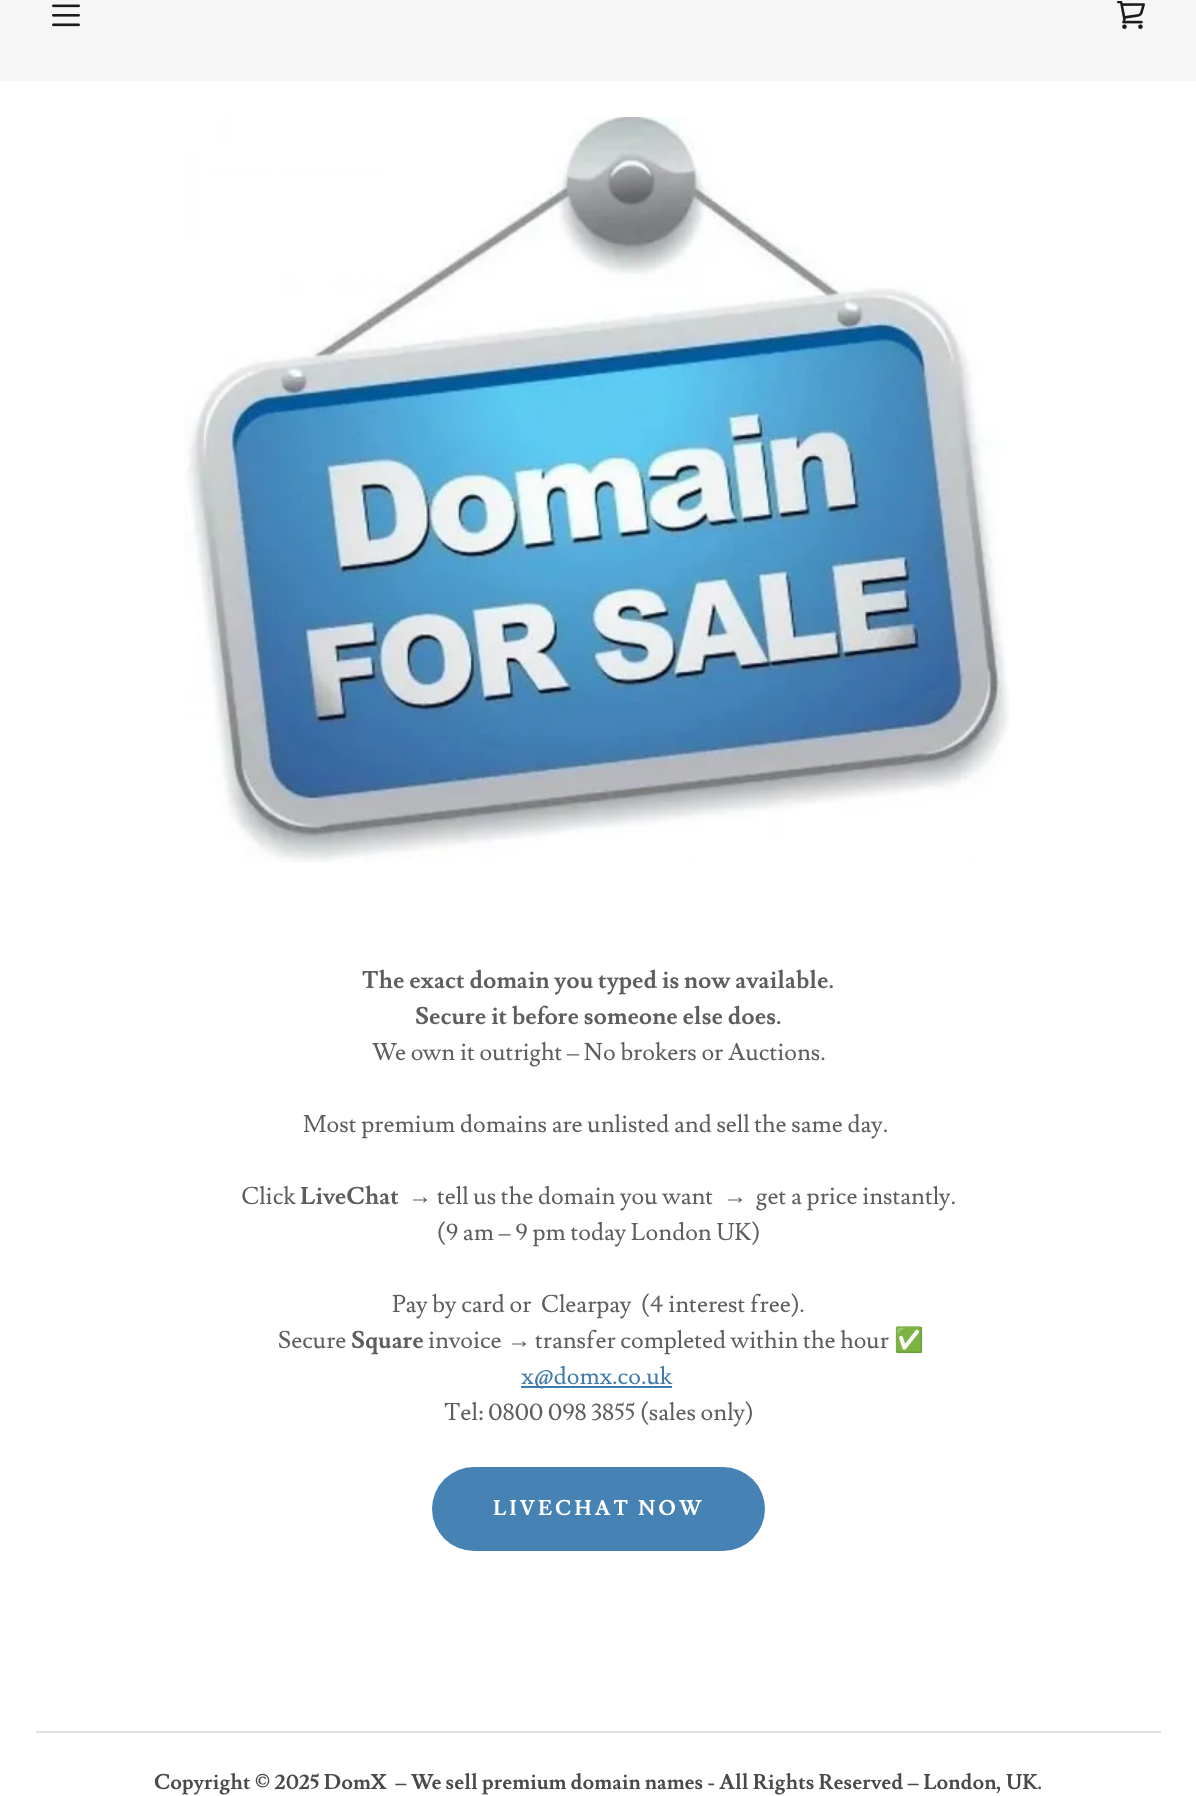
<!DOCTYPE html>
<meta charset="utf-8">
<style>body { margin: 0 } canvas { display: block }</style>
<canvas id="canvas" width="1196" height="1796"></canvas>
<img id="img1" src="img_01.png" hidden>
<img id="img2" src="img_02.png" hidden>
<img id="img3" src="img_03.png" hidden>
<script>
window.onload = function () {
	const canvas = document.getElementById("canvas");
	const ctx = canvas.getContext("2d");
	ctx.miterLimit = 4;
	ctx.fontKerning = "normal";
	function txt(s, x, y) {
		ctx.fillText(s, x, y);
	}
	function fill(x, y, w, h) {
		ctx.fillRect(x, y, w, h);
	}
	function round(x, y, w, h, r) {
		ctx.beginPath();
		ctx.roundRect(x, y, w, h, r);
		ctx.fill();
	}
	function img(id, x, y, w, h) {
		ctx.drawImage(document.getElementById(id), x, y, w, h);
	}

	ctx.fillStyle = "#FFFFFF";
	fill(0, 0, 1196, 1796);
	ctx.fillStyle = "#F6F6F6";
	fill(0, 0, 1196, 81);
	img("img1", 52, 4, 28, 23);
	img("img2", 1117, 1, 28, 28);
	img("img3", 184, 117, 825, 746);
	ctx.fillStyle = "#417BAB";
	fill(521, 1386, 151, 2);
	ctx.fillStyle = "#4682B4";
	round(432, 1467, 333, 84, 42);
	ctx.fillStyle = "#E2E2E2";
	fill(36, 1731, 1125, 2);
	ctx.font = "bold 24px Lusitana";
	ctx.fillStyle = "#5E5E5E";
	txt("The exact domain you typed is now available.", 362, 988);
	txt("Secure it before someone else does.", 415, 1024);
	ctx.font = "24px Lusitana";
	txt("We own it outright – No brokers or Auctions.", 372, 1060);
	txt("Most premium domains are unlisted and sell the same day.", 303, 1132);
	txt("Click", 241, 1204);
	ctx.font = "bold 24px Lusitana";
	txt("LiveChat", 300, 1204);
	ctx.font = "24px Liberation Serif";
	txt("→", 408, 1204);
	ctx.font = "24px Lusitana";
	txt("tell us the domain you want", 437, 1204);
	ctx.font = "24px Liberation Serif";
	txt("→", 723, 1204);
	ctx.font = "24px Lusitana";
	txt("get a price instantly.", 756, 1204);
	txt("(9 am – 9 pm today London UK)", 437, 1240);
	txt("Pay by card or  Clearpay  (4 interest free).", 392, 1312);
	txt("Secure", 278, 1348);
	ctx.font = "bold 24px Lusitana";
	txt("Square", 351, 1348);
	ctx.font = "24px Lusitana";
	txt("invoice", 428, 1348);
	ctx.font = "24px Liberation Serif";
	txt("→", 507, 1348);
	ctx.font = "24px Lusitana";
	txt("transfer completed within the hour", 535, 1348);
	ctx.font = "24px Noto Color Emoji";
	txt("✅", 894, 1348);
	ctx.font = "24px Lusitana";
	ctx.fillStyle = "#417BAB";
	txt("x@domx.co.uk", 521, 1384);
	ctx.fillStyle = "#5E5E5E";
	txt("Tel: 0800 098 3855 (sales only)", 444, 1420);
	ctx.letterSpacing = "3px";
	ctx.font = "bold 21px Lusitana";
	ctx.fillStyle = "#FFFFFF";
	txt("LIVECHAT NOW", 493, 1515);
	ctx.letterSpacing = "0px";
	ctx.fillStyle = "#4C4949";
	txt("Copyright © 2025 DomX  – We sell premium domain names - All Rights Reserved – London, UK.", 154, 1789);
};
</script>
